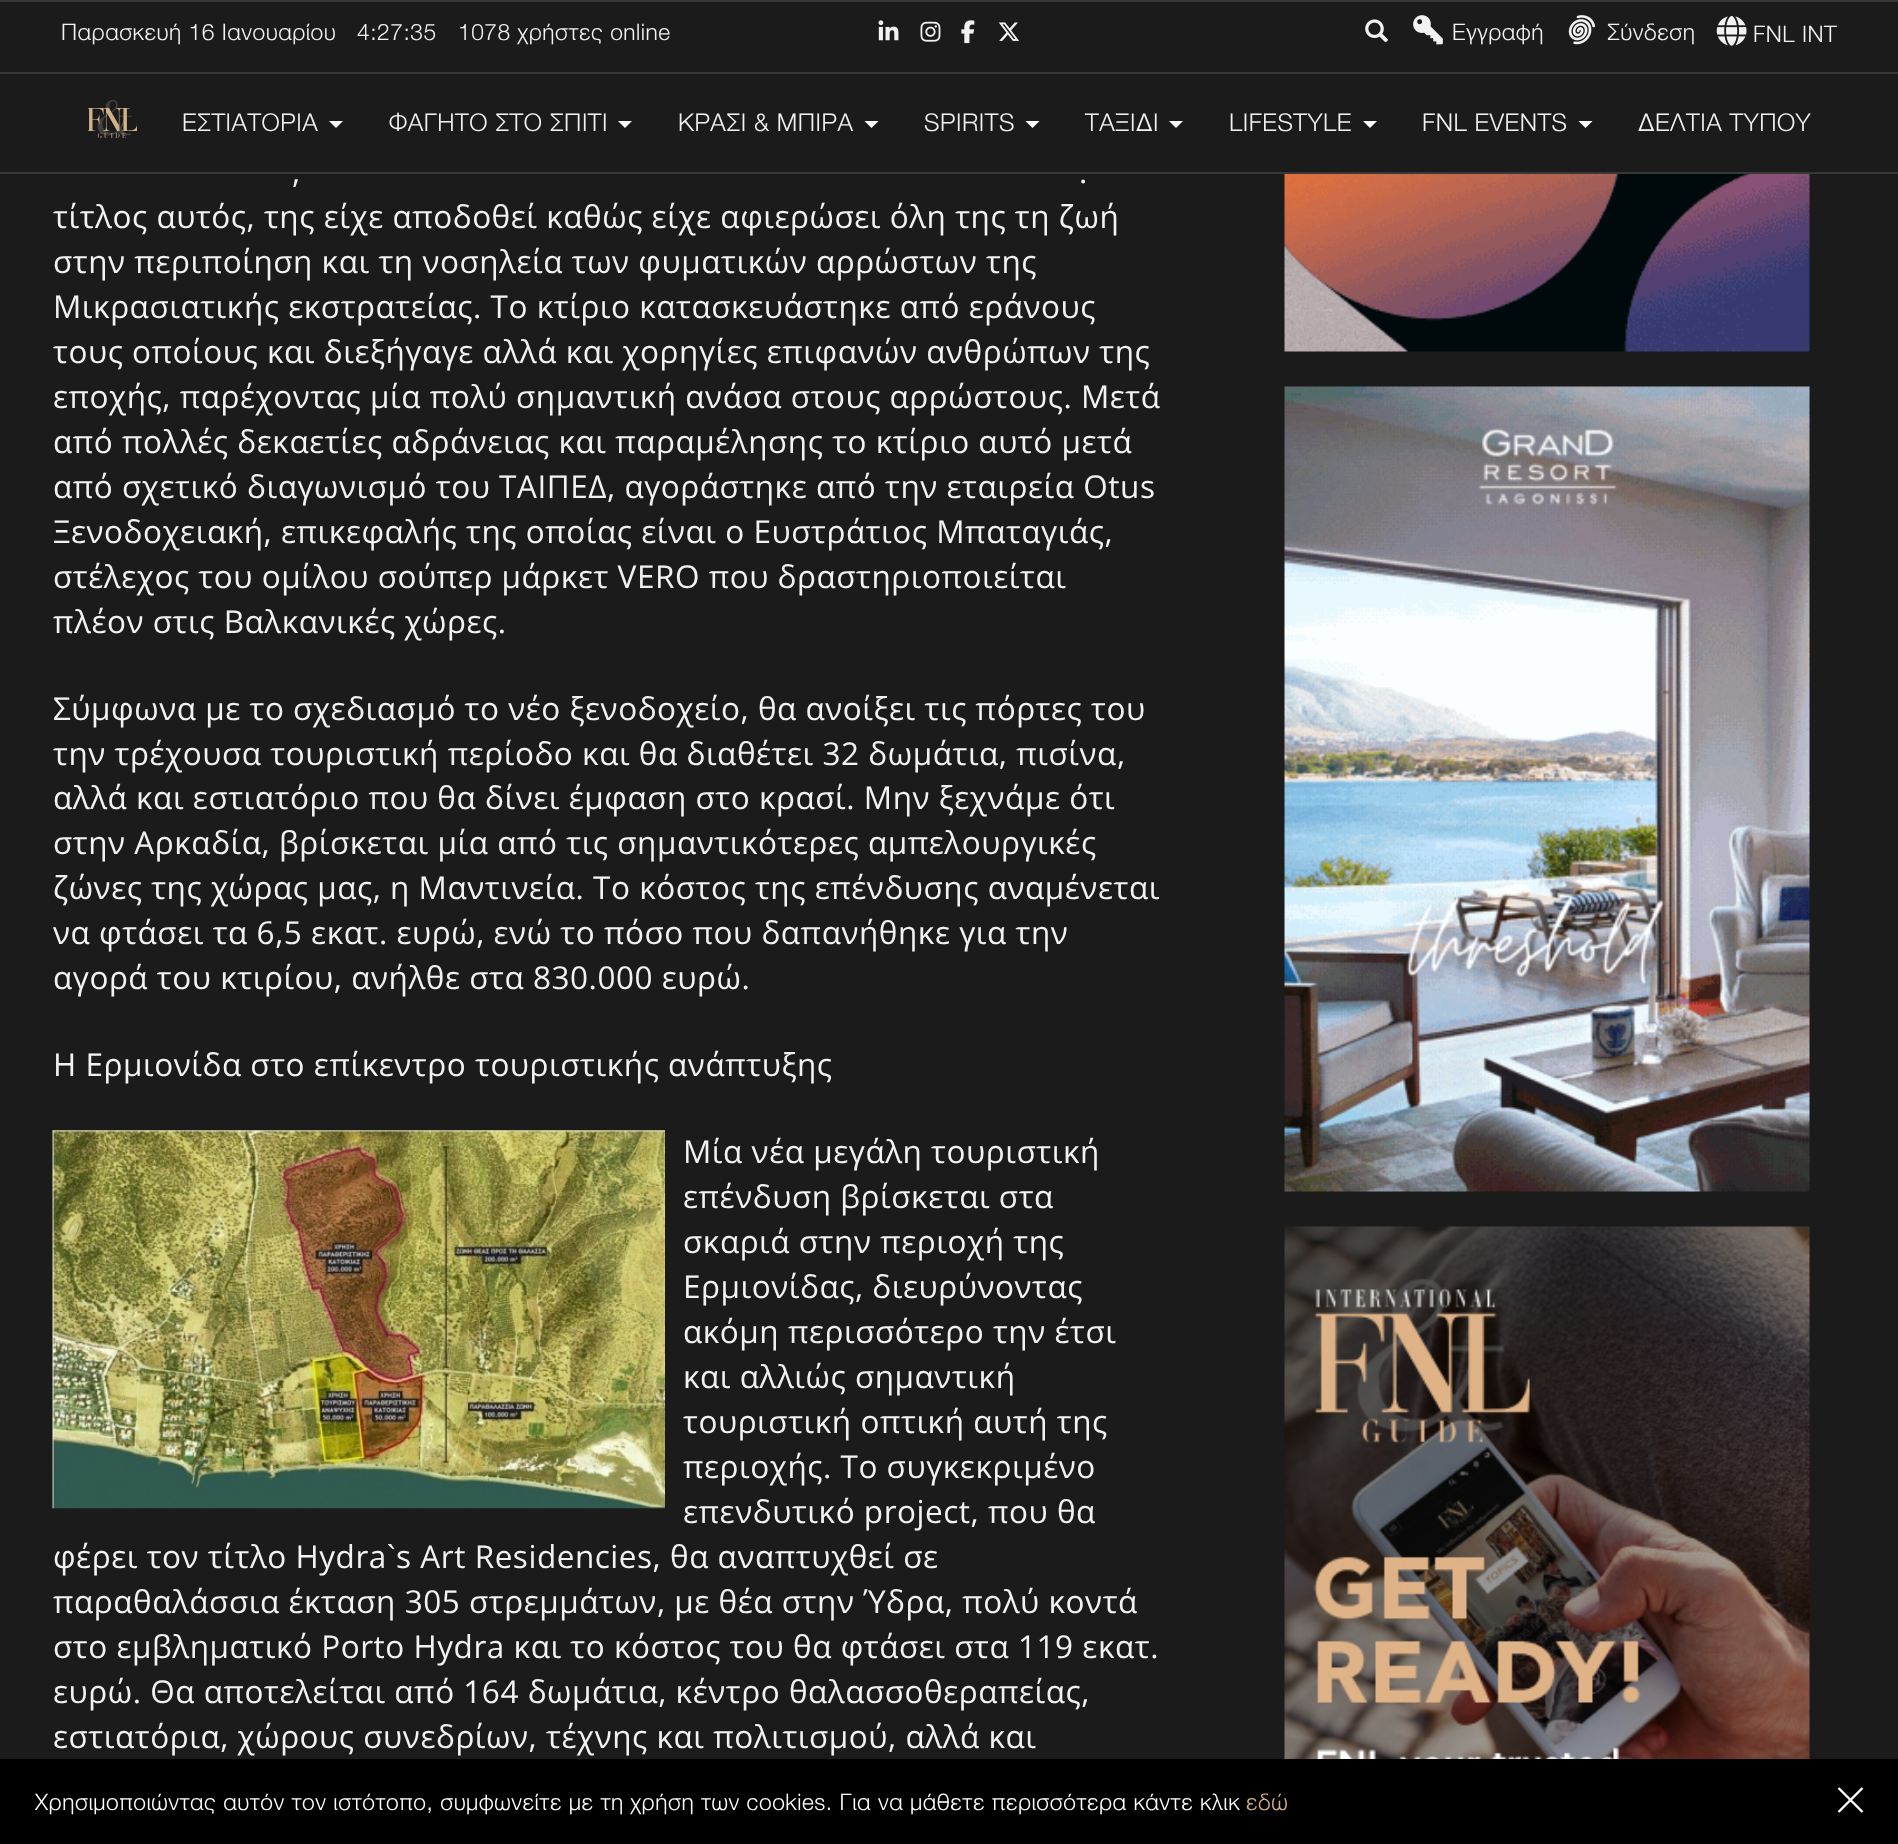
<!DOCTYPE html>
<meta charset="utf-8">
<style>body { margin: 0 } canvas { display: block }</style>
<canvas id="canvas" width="1898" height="1844"></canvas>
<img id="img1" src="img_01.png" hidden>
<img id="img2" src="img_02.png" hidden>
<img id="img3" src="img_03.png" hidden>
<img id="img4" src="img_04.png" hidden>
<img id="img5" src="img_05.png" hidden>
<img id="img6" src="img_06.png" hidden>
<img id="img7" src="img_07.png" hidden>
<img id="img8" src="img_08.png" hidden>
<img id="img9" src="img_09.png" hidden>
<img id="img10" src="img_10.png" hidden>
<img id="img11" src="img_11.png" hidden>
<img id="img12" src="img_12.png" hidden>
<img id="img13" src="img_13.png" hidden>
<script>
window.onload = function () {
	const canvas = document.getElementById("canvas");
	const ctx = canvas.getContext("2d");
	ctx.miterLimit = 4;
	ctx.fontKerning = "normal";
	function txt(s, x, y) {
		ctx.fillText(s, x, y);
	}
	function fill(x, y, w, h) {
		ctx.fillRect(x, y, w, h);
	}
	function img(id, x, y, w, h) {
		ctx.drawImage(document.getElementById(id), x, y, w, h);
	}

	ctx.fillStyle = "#1B1B1B";
	fill(0, 0, 1898, 1844);
	ctx.fillStyle = "#383838";
	fill(0, 0, 1898, 2);
	fill(0, 72, 1898, 2);
	img("img1", 878, 20, 21, 21);
	img("img2", 920, 21, 21, 21);
	img("img3", 961, 20, 14, 24);
	img("img4", 998, 22, 21, 19);
	img("img5", 1365, 19, 23, 24);
	img("img6", 1413, 15, 30, 30);
	img("img7", 1568, 15, 27, 30);
	img("img8", 1716, 16, 31, 30);
	fill(0, 172, 1898, 2);
	img("img9", 88, 100, 49, 38);
	ctx.fillStyle = "#FFFFFF";
	ctx.beginPath();
	ctx.moveTo(329, 121);
	ctx.lineTo(343, 121);
	ctx.lineTo(336, 128);
	ctx.closePath();
	ctx.fill();
	ctx.beginPath();
	ctx.moveTo(618, 121);
	ctx.lineTo(632, 121);
	ctx.lineTo(625, 128);
	ctx.closePath();
	ctx.fill();
	ctx.beginPath();
	ctx.moveTo(864.5, 121);
	ctx.lineTo(878.5, 121);
	ctx.lineTo(871.5, 128);
	ctx.closePath();
	ctx.fill();
	ctx.beginPath();
	ctx.moveTo(1025.5, 121);
	ctx.lineTo(1039.5, 121);
	ctx.lineTo(1032.5, 128);
	ctx.closePath();
	ctx.fill();
	ctx.beginPath();
	ctx.moveTo(1169, 121);
	ctx.lineTo(1183, 121);
	ctx.lineTo(1176, 128);
	ctx.closePath();
	ctx.fill();
	ctx.beginPath();
	ctx.moveTo(1363, 121);
	ctx.lineTo(1377, 121);
	ctx.lineTo(1370, 128);
	ctx.closePath();
	ctx.fill();
	ctx.beginPath();
	ctx.moveTo(1578.5, 121);
	ctx.lineTo(1592.5, 121);
	ctx.lineTo(1585.5, 128);
	ctx.closePath();
	ctx.fill();
	img("img10", 52, 1130, 613, 379);
	img("img11", 1284, 174, 526, 178);
	img("img12", 1284, 386, 526, 806);
	img("img13", 1284, 1226, 526, 533);
	ctx.fillStyle = "#000000";
	fill(0, 1759, 1898, 85);
	ctx.beginPath();
	ctx.moveTo(1838.5, 1788);
	ctx.lineTo(1862.5, 1812);
	ctx.moveTo(1862.5, 1788);
	ctx.lineTo(1838.5, 1812);
	ctx.strokeStyle = "#FFFFFF";
	ctx.lineWidth = 2.4;
	ctx.stroke();
	ctx.letterSpacing = "0.53px";
	ctx.font = "300 22.75px Helvetica Neue";
	ctx.fillStyle = "#F2F2F2";
	txt("Παρασκευή 16 Ιανουαρίου", 61, 40);
	txt("4:27:35", 357, 40);
	txt("1078 χρήστες online", 458, 40);
	txt("Εγγραφή", 1452, 40);
	txt("Σύνδεση", 1607, 40);
	txt("FNL INT", 1753, 42);
	ctx.font = "300 24.5px Helvetica Neue";
	txt("ΕΣΤΙΑΤΟΡΙΑ", 182, 131);
	txt("ΦΑΓΗΤΟ ΣΤΟ ΣΠΙΤΙ", 389, 131);
	txt("ΚΡΑΣΙ & ΜΠΙΡΑ", 678, 131);
	txt("SPIRITS", 924, 131);
	txt("ΤΑΞΙΔΙ", 1085, 131);
	txt("LIFESTYLE", 1229, 131);
	txt("FNL EVENTS", 1422, 131);
	txt("ΔΕΛΤΙΑ ΤΥΠΟΥ", 1638, 131);
	ctx.font = "31.5px Open Sans";
	txt(",", 292, 183);
	txt(".", 1079, 183);
	txt("τίτλος αυτός, της είχε αποδοθεί καθώς είχε αφιερώσει όλη της τη ζωή", 53, 228);
	txt("στην περιποίηση και τη νοσηλεία των φυματικών αρρώστων της", 53, 273);
	txt("Μικρασιατικής εκστρατείας. Το κτίριο κατασκευάστηκε από εράνους", 53, 318);
	txt("τους οποίους και διεξήγαγε αλλά και χορηγίες επιφανών ανθρώπων της", 53, 363);
	txt("εποχής, παρέχοντας μία πολύ σημαντική ανάσα στους αρρώστους. Μετά", 53, 408);
	txt("από πολλές δεκαετίες αδράνειας και παραμέλησης το κτίριο αυτό μετά", 53, 453);
	txt("από σχετικό διαγωνισμό του ΤΑΙΠΕΔ, αγοράστηκε από την εταιρεία Otus", 53, 498);
	txt("Ξενοδοχειακή, επικεφαλής της οποίας είναι ο Ευστράτιος Μπαταγιάς,", 53, 543);
	txt("στέλεχος του ομίλου σούπερ μάρκετ VERO που δραστηριοποιείται", 53, 588);
	txt("πλέον στις Βαλκανικές χώρες.", 53, 633);
	txt("Σύμφωνα με το σχεδιασμό το νέο ξενοδοχείο, θα ανοίξει τις πόρτες του", 53, 720);
	txt("την τρέχουσα τουριστική περίοδο και θα διαθέτει 32 δωμάτια, πισίνα,", 53, 765);
	txt("αλλά και εστιατόριο που θα δίνει έμφαση στο κρασί. Μην ξεχνάμε ότι", 53, 809);
	txt("στην Αρκαδία, βρίσκεται μία από τις σημαντικότερες αμπελουργικές", 53, 854);
	txt("ζώνες της χώρας μας, η Μαντινεία. Το κόστος της επένδυσης αναμένεται", 53, 899);
	txt("να φτάσει τα 6,5 εκατ. ευρώ, ενώ το πόσο που δαπανήθηκε για την", 53, 944);
	txt("αγορά του κτιρίου, ανήλθε στα 830.000 ευρώ.", 53, 989);
	txt("Η Ερμιονίδα στο επίκεντρο τουριστικής ανάπτυξης", 53, 1076);
	txt("Μία νέα μεγάλη τουριστική", 683, 1163);
	txt("επένδυση βρίσκεται στα", 683, 1208);
	txt("σκαριά στην περιοχή της", 683, 1253);
	txt("Ερμιονίδας, διευρύνοντας", 683, 1298);
	txt("ακόμη περισσότερο την έτσι", 683, 1343);
	txt("και αλλιώς σημαντική", 683, 1388);
	txt("τουριστική οπτική αυτή της", 683, 1433);
	txt("περιοχής. Το συγκεκριμένο", 683, 1478);
	txt("επενδυτικό project, που θα", 683, 1523);
	txt("φέρει τον τίτλο Hydra`s Art Residencies, θα αναπτυχθεί σε", 53, 1568);
	txt("παραθαλάσσια έκταση 305 στρεμμάτων, με θέα στην Ύδρα, πολύ κοντά", 53, 1613);
	txt("στο εμβληματικό Porto Hydra και το κόστος του θα φτάσει στα 119 εκατ.", 53, 1658);
	txt("ευρώ. Θα αποτελείται από 164 δωμάτια, κέντρο θαλασσοθεραπείας,", 53, 1703);
	txt("εστιατόρια, χώρους συνεδρίων, τέχνης και πολιτισμού, αλλά και", 53, 1748);
	ctx.font = "300 22.75px Helvetica Neue";
	ctx.fillStyle = "#FFFFFF";
	txt("Χρησιμοποιώντας αυτόν τον ιστότοπο, συμφωνείτε με τη χρήση των cookies. Για να μάθετε περισσότερα κάντε κλικ", 35, 1810);
	ctx.fillStyle = "#D3B18B";
	txt("εδώ", 1246, 1810);
};
</script>
